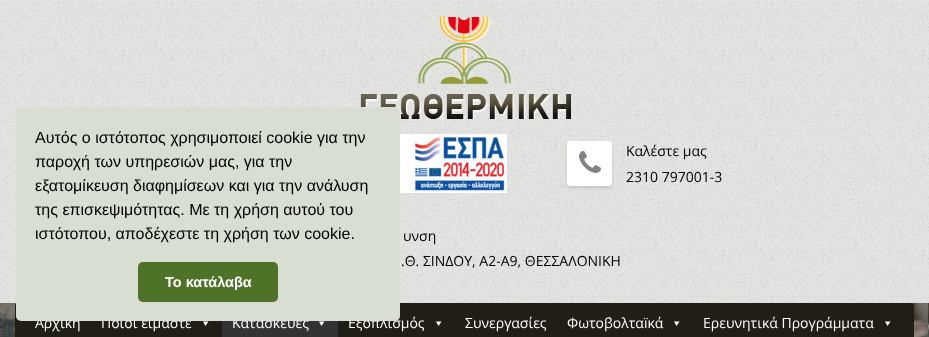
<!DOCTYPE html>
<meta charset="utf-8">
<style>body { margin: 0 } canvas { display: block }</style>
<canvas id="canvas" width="929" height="337"></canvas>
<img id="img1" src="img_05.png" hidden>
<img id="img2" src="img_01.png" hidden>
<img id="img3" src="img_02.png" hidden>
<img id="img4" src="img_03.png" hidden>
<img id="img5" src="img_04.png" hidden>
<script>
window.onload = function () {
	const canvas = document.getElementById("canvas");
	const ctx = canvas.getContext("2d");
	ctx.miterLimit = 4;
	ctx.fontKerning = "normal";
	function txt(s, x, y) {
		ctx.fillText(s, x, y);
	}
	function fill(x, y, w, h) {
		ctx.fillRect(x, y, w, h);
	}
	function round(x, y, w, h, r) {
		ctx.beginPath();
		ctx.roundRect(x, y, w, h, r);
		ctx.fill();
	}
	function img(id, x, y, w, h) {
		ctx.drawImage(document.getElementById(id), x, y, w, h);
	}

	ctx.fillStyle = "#FFFFFF";
	fill(0, 0, 929, 337);
	img("img1", 0, 303, 929, 34);
	ctx.save();
	ctx.beginPath();
	ctx.rect(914, 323, 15, 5);
	ctx.clip();
	ctx.fillStyle = "#808080";
	ctx.filter = "blur(2.5px)";
	ctx.beginPath();
	ctx.roundRect(859, 263, 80, 60, 2);
	ctx.fill();
	ctx.filter = "none";
	ctx.restore();
	ctx.fillStyle = "#E4E4E2";
	fill(0, 0, 929, 303);
	img("img2", 0, 0, 929, 303);
	ctx.fillStyle = "rgba(255, 255, 255, 0.1)";
	fill(0, 0, 929, 1);
	img("img3", 360, 16, 213, 103);
	img("img4", 400, 134, 107, 59);
	ctx.fillStyle = "rgba(0, 0, 0, 0.12)";
	ctx.filter = "blur(1.5px)";
	ctx.beginPath();
	ctx.roundRect(567, 143, 45, 45, 3);
	ctx.fill();
	ctx.filter = "none";
	ctx.fillStyle = "#FFFFFF";
	round(567, 141, 45, 45, 3);
	img("img5", 579, 151, 22, 22);
	ctx.fillStyle = "#211E15";
	round(15, 303, 899, 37, 3);
	ctx.fillStyle = "#FFFFFF";
	ctx.beginPath();
	ctx.moveTo(208.5, 321.5);
	ctx.lineTo(205.5, 326);
	ctx.lineTo(203, 321.5);
	ctx.closePath();
	ctx.fill();
	ctx.fillStyle = "#333333";
	fill(222, 321, 116, 16);
	ctx.fillStyle = "#FFFFFF";
	ctx.beginPath();
	ctx.moveTo(324.5, 321.5);
	ctx.lineTo(321.5, 326);
	ctx.lineTo(319, 321.5);
	ctx.closePath();
	ctx.fill();
	ctx.beginPath();
	ctx.moveTo(441.5, 321.5);
	ctx.lineTo(438.5, 326);
	ctx.lineTo(436, 321.5);
	ctx.closePath();
	ctx.fill();
	ctx.beginPath();
	ctx.moveTo(679.5, 321.5);
	ctx.lineTo(676.5, 326);
	ctx.lineTo(674, 321.5);
	ctx.closePath();
	ctx.fill();
	ctx.beginPath();
	ctx.moveTo(890.5, 321.5);
	ctx.lineTo(887.5, 326);
	ctx.lineTo(885, 321.5);
	ctx.closePath();
	ctx.fill();
	ctx.font = "14px Open Sans";
	ctx.fillStyle = "#000000";
	txt("Καλέστε μας", 626, 156);
	txt("2310 797001-3", 626, 182);
	txt("υνση", 403, 241);
	txt(".Θ. ΣΙΝΔΟΥ, Α2-Α9, ΘΕΣΣΑΛΟΝΙΚΗ", 401, 266);
	ctx.fillStyle = "#FFFFFF";
	txt("Αρχική", 35, 328);
	txt("Ποιοι είμαστε", 101, 328);
	txt("Κατασκευές", 232, 328);
	txt("Εξοπλισμός", 348, 328);
	ctx.fillStyle = "#D8DED2";
	round(16, 107, 384, 214, 5);
	ctx.fillStyle = "#4E7228";
	round(138, 262, 140, 40, 5);
	ctx.font = "bold 14.5px Liberation Sans";
	ctx.fillStyle = "#FFFFFF";
	txt("Το κατάλαβα", 165, 287);
	ctx.font = "16px Liberation Sans";
	ctx.fillStyle = "#000000";
	txt("ιστότοπου, αποδέχεστε τη χρήση των cookie.", 35, 239);
	txt("της επισκεψιμότητας. Με τη χρήση αυτού του", 35, 215);
	txt("εξατομίκευση διαφημίσεων και για την ανάλυση", 35, 191);
	txt("παροχή των υπηρεσιών μας, για την", 35, 167);
	txt("Αυτός ο ιστότοπος χρησιμοποιεί cookie για την", 35, 143);
	ctx.font = "14px Open Sans";
	ctx.fillStyle = "#FFFFFF";
	txt("Συνεργασίες", 465, 328);
	txt("Φωτοβολταïκά", 567, 328);
	txt("Ερευνητικά Προγράμματα", 703, 328);
};
</script>
